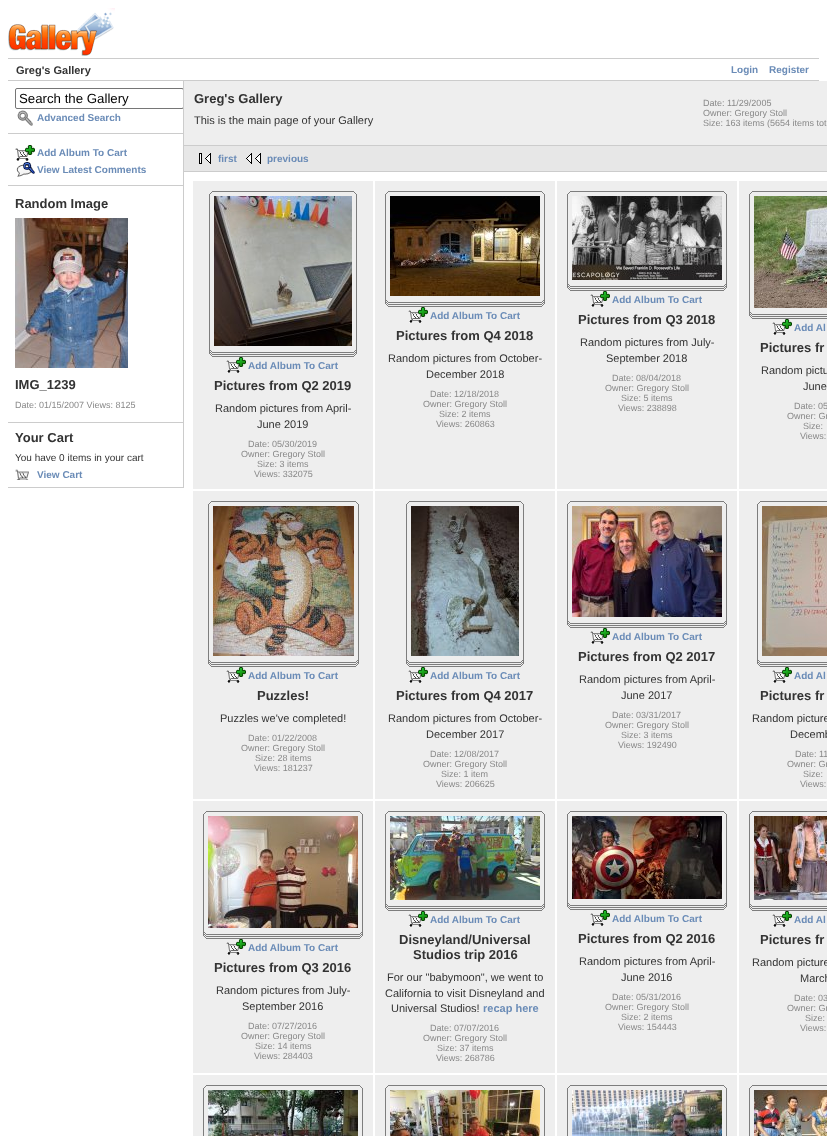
<!DOCTYPE html>
<meta charset="utf-8">
<style>body { margin: 0 } canvas { display: block }</style>
<canvas id="canvas" width="827" height="1136"></canvas>
<img id="img1" src="img_01.png" hidden>
<img id="img2" src="img_02.png" hidden>
<img id="img3" src="img_03.png" hidden>
<img id="img4" src="img_04.png" hidden>
<img id="img5" src="img_05.png" hidden>
<img id="img6" src="img_06.png" hidden>
<img id="img7" src="img_07.png" hidden>
<img id="img8" src="img_08.png" hidden>
<img id="img9" src="img_09.png" hidden>
<img id="img10" src="img_10.png" hidden>
<img id="img11" src="img_11.png" hidden>
<img id="img12" src="img_12.png" hidden>
<img id="img13" src="img_13.png" hidden>
<img id="img14" src="img_14.png" hidden>
<img id="img15" src="img_15.png" hidden>
<img id="img16" src="img_16.png" hidden>
<img id="img17" src="img_17.png" hidden>
<img id="img18" src="img_18.png" hidden>
<img id="img19" src="img_19.png" hidden>
<img id="img20" src="img_20.png" hidden>
<img id="img21" src="img_21.png" hidden>
<img id="img22" src="img_22.png" hidden>
<img id="img23" src="img_23.png" hidden>
<img id="img24" src="img_24.png" hidden>
<img id="img25" src="img_25.png" hidden>
<img id="img26" src="img_26.png" hidden>
<img id="img27" src="img_27.png" hidden>
<img id="img28" src="img_28.png" hidden>
<img id="img29" src="img_29.png" hidden>
<img id="img30" src="img_30.png" hidden>
<img id="img31" src="img_31.png" hidden>
<img id="img32" src="img_32.png" hidden>
<img id="img33" src="img_33.png" hidden>
<img id="img34" src="img_34.png" hidden>
<img id="img35" src="img_35.png" hidden>
<script>
window.onload = function () {
	const canvas = document.getElementById("canvas");
	const ctx = canvas.getContext("2d");
	ctx.miterLimit = 4;
	ctx.fontKerning = "normal";
	function txt(s, x, y) {
		ctx.fillText(s, x, y);
	}
	function fill(x, y, w, h) {
		ctx.fillRect(x, y, w, h);
	}
	function img(id, x, y, w, h) {
		ctx.drawImage(document.getElementById(id), x, y, w, h);
	}

	ctx.fillStyle = "#FFFFFF";
	fill(0, 0, 827, 1136);
	img("img1", 8, 8, 107, 48);
	ctx.fillStyle = "#CCCCCC";
	fill(8, 58, 811, 1);
	fill(8, 80, 811, 1);
	fill(183, 81, 1, 407);
	fill(8, 133, 175, 1);
	ctx.save();
	ctx.beginPath();
	ctx.rect(8, 81, 175, 407);
	ctx.clip();
	ctx.beginPath();
	ctx.roundRect(15.5, 88.5, 168, 20, 1.5);
	ctx.strokeStyle = "#767676";
	ctx.stroke();
	ctx.restore();
	img("img2", 17, 110, 16, 16);
	fill(8, 185, 175, 1);
	img("img3", 15, 145, 20, 16);
	img("img4", 16, 162, 19, 15);
	fill(8, 422, 175, 1);
	img("img5", 15, 218, 113, 150);
	fill(8, 487, 175, 1);
	img("img6", 15, 469, 14, 11);
	ctx.fillStyle = "#EEEEEE";
	fill(184, 81, 643, 64);
	ctx.fillStyle = "#CCCCCC";
	fill(184, 145, 643, 1);
	ctx.fillStyle = "#E7E7E7";
	fill(184, 146, 643, 25);
	ctx.fillStyle = "#CCCCCC";
	fill(184, 171, 643, 1);
	img("img7", 199, 153, 12, 11);
	img("img8", 246, 153, 15, 11);
	ctx.fillStyle = "#EEEEEE";
	fill(193, 181, 180, 308);
	img("img9", 209, 191, 5, 5);
	ctx.fillStyle = "#7D7D7D";
	fill(214, 191, 138, 1);
	img("img10", 352, 191, 5, 5);
	fill(209, 196, 1, 150);
	img("img11", 214, 196, 138, 150);
	fill(356, 196, 1, 150);
	img("img12", 209, 346, 5, 11);
	img("img13", 214, 352, 138, 5);
	img("img14", 352, 346, 5, 11);
	img("img15", 226, 357, 20, 16);
	ctx.fillStyle = "#EEEEEE";
	fill(375, 181, 180, 308);
	img("img9", 385, 191, 5, 5);
	ctx.fillStyle = "#7D7D7D";
	fill(390, 191, 150, 1);
	img("img10", 540, 191, 5, 5);
	fill(385, 196, 1, 100);
	img("img16", 390, 196, 150, 100);
	fill(544, 196, 1, 100);
	img("img12", 385, 296, 5, 11);
	img("img17", 390, 302, 150, 5);
	img("img14", 540, 296, 5, 11);
	img("img15", 408, 307, 20, 16);
	ctx.fillStyle = "#EEEEEE";
	fill(557, 181, 180, 308);
	img("img9", 567, 191, 5, 5);
	ctx.fillStyle = "#7D7D7D";
	fill(572, 191, 150, 1);
	img("img10", 722, 191, 5, 5);
	fill(567, 196, 1, 84);
	img("img18", 572, 196, 150, 84);
	fill(726, 196, 1, 84);
	img("img12", 567, 280, 5, 11);
	img("img17", 572, 286, 150, 5);
	img("img14", 722, 280, 5, 11);
	img("img15", 590, 291, 20, 16);
	ctx.fillStyle = "#EEEEEE";
	fill(739, 181, 88, 308);
	img("img9", 749, 191, 5, 5);
	ctx.fillStyle = "#7D7D7D";
	fill(754, 191, 73, 1);
	fill(749, 196, 1, 112);
	img("img19", 754, 196, 73, 112);
	img("img12", 749, 308, 5, 11);
	img("img20", 754, 314, 73, 5);
	img("img15", 772, 319, 20, 16);
	ctx.fillStyle = "#EEEEEE";
	fill(193, 491, 180, 308);
	img("img9", 208, 501, 5, 5);
	ctx.fillStyle = "#7D7D7D";
	fill(213, 501, 141, 1);
	img("img10", 354, 501, 5, 5);
	fill(208, 506, 1, 150);
	img("img21", 213, 506, 141, 150);
	fill(358, 506, 1, 150);
	img("img12", 208, 656, 5, 11);
	img("img22", 213, 662, 141, 5);
	img("img14", 354, 656, 5, 11);
	img("img15", 226, 667, 20, 16);
	ctx.fillStyle = "#EEEEEE";
	fill(375, 491, 180, 308);
	img("img9", 406, 501, 5, 5);
	ctx.fillStyle = "#7D7D7D";
	fill(411, 501, 108, 1);
	img("img10", 519, 501, 5, 5);
	fill(406, 506, 1, 150);
	img("img23", 411, 506, 108, 150);
	fill(523, 506, 1, 150);
	img("img12", 406, 656, 5, 11);
	img("img24", 411, 662, 108, 5);
	img("img14", 519, 656, 5, 11);
	img("img15", 408, 667, 20, 16);
	ctx.fillStyle = "#EEEEEE";
	fill(557, 491, 180, 308);
	img("img9", 567, 501, 5, 5);
	ctx.fillStyle = "#7D7D7D";
	fill(572, 501, 150, 1);
	img("img10", 722, 501, 5, 5);
	fill(567, 506, 1, 111);
	img("img25", 572, 506, 150, 111);
	fill(726, 506, 1, 111);
	img("img12", 567, 617, 5, 11);
	img("img17", 572, 623, 150, 5);
	img("img14", 722, 617, 5, 11);
	img("img15", 590, 628, 20, 16);
	ctx.fillStyle = "#EEEEEE";
	fill(739, 491, 88, 308);
	img("img9", 757, 501, 5, 5);
	ctx.fillStyle = "#7D7D7D";
	fill(762, 501, 65, 1);
	fill(757, 506, 1, 150);
	img("img26", 762, 506, 65, 150);
	img("img12", 757, 656, 5, 11);
	img("img27", 762, 662, 65, 5);
	img("img15", 772, 667, 20, 16);
	ctx.fillStyle = "#EEEEEE";
	fill(193, 801, 180, 272);
	img("img9", 203, 811, 5, 5);
	ctx.fillStyle = "#7D7D7D";
	fill(208, 811, 150, 1);
	img("img10", 358, 811, 5, 5);
	fill(203, 816, 1, 112);
	img("img28", 208, 816, 150, 112);
	fill(362, 816, 1, 112);
	img("img12", 203, 928, 5, 11);
	img("img17", 208, 934, 150, 5);
	img("img14", 358, 928, 5, 11);
	img("img15", 226, 939, 20, 16);
	ctx.fillStyle = "#EEEEEE";
	fill(375, 801, 180, 272);
	img("img9", 385, 811, 5, 5);
	ctx.fillStyle = "#7D7D7D";
	fill(390, 811, 150, 1);
	img("img10", 540, 811, 5, 5);
	fill(385, 816, 1, 84);
	img("img29", 390, 816, 150, 84);
	fill(544, 816, 1, 84);
	img("img12", 385, 900, 5, 11);
	img("img17", 390, 906, 150, 5);
	img("img14", 540, 900, 5, 11);
	img("img15", 408, 911, 20, 16);
	ctx.fillStyle = "#EEEEEE";
	fill(557, 801, 180, 272);
	img("img9", 567, 811, 5, 5);
	ctx.fillStyle = "#7D7D7D";
	fill(572, 811, 150, 1);
	img("img10", 722, 811, 5, 5);
	fill(567, 816, 1, 83);
	img("img30", 572, 816, 150, 83);
	fill(726, 816, 1, 83);
	img("img12", 567, 899, 5, 11);
	img("img17", 572, 905, 150, 5);
	img("img14", 722, 899, 5, 11);
	img("img15", 590, 910, 20, 16);
	ctx.fillStyle = "#EEEEEE";
	fill(739, 801, 88, 272);
	img("img9", 749, 811, 5, 5);
	ctx.fillStyle = "#7D7D7D";
	fill(754, 811, 73, 1);
	fill(749, 816, 1, 84);
	img("img31", 754, 816, 73, 84);
	img("img12", 749, 900, 5, 11);
	img("img20", 754, 906, 73, 5);
	img("img15", 772, 911, 20, 16);
	ctx.fillStyle = "#EEEEEE";
	fill(193, 1075, 180, 61);
	img("img9", 203, 1085, 5, 5);
	ctx.fillStyle = "#7D7D7D";
	fill(208, 1085, 150, 1);
	img("img10", 358, 1085, 5, 5);
	fill(203, 1090, 1, 46);
	img("img32", 208, 1090, 150, 46);
	fill(362, 1090, 1, 46);
	ctx.fillStyle = "#EEEEEE";
	fill(375, 1075, 180, 61);
	img("img9", 385, 1085, 5, 5);
	ctx.fillStyle = "#7D7D7D";
	fill(390, 1085, 150, 1);
	img("img10", 540, 1085, 5, 5);
	fill(385, 1090, 1, 46);
	img("img33", 390, 1090, 150, 46);
	fill(544, 1090, 1, 46);
	ctx.fillStyle = "#EEEEEE";
	fill(557, 1075, 180, 61);
	img("img9", 567, 1085, 5, 5);
	ctx.fillStyle = "#7D7D7D";
	fill(572, 1085, 150, 1);
	img("img10", 722, 1085, 5, 5);
	fill(567, 1090, 1, 46);
	img("img34", 572, 1090, 150, 46);
	fill(726, 1090, 1, 46);
	ctx.fillStyle = "#EEEEEE";
	fill(739, 1075, 88, 61);
	img("img9", 749, 1085, 5, 5);
	ctx.fillStyle = "#7D7D7D";
	fill(754, 1085, 73, 1);
	fill(749, 1090, 1, 46);
	img("img35", 754, 1090, 73, 46);
	ctx.font = "bold 11px Liberation Sans";
	ctx.fillStyle = "#333333";
	txt("Greg's Gallery", 16, 74);
	ctx.font = "bold 10px Liberation Sans";
	ctx.fillStyle = "#6B8CB7";
	txt("Login", 731, 73);
	txt("Register", 769, 73);
	ctx.font = "13.25px Liberation Sans";
	ctx.fillStyle = "#000000";
	txt("Search the Gallery", 19, 103);
	ctx.font = "bold 10px Liberation Sans";
	ctx.fillStyle = "#6B8CB7";
	txt("Advanced Search", 37, 121);
	txt("Add Album To Cart", 37, 156);
	txt("View Latest Comments", 37, 173);
	ctx.font = "bold 13px Liberation Sans";
	ctx.fillStyle = "#333333";
	txt("Random Image", 15, 208);
	txt("IMG_1239", 15, 389);
	ctx.font = "9px Liberation Sans";
	ctx.fillStyle = "#888888";
	txt("Date: 01/15/2007 Views: 8125", 15, 408);
	ctx.font = "bold 13px Liberation Sans";
	ctx.fillStyle = "#333333";
	txt("Your Cart", 15, 442);
	ctx.font = "10px Liberation Sans";
	txt("You have 0 items in your cart", 15, 461);
	ctx.font = "bold 10px Liberation Sans";
	ctx.fillStyle = "#6B8CB7";
	txt("View Cart", 37, 478);
	ctx.font = "bold 13px Liberation Sans";
	ctx.fillStyle = "#333333";
	txt("Greg's Gallery", 194, 103);
	ctx.font = "11px Liberation Sans";
	txt("This is the main page of your Gallery", 194, 124);
	ctx.font = "9px Liberation Sans";
	ctx.fillStyle = "#888888";
	txt("Date: 11/29/2005", 703, 106);
	txt("Owner: Gregory Stoll", 703, 116);
	txt("Size: 163 items (5654 items tot", 703, 126);
	ctx.font = "bold 10px Liberation Sans";
	ctx.fillStyle = "#6B8CB7";
	txt("first", 218, 162);
	txt("previous", 267, 162);
	txt("Add Album To Cart", 248, 369);
	ctx.font = "bold 13px Liberation Sans";
	ctx.fillStyle = "#333333";
	txt("Pictures from Q2 2019", 214, 390);
	ctx.font = "11px Liberation Sans";
	txt("Random pictures from April-", 215, 412);
	txt("June 2019", 257, 428);
	ctx.font = "9px Liberation Sans";
	ctx.fillStyle = "#888888";
	txt("Date: 05/30/2019", 248, 447);
	txt("Owner: Gregory Stoll", 241, 457);
	txt("Size: 3 items", 257, 467);
	txt("Views: 332075", 254, 477);
	ctx.font = "bold 10px Liberation Sans";
	ctx.fillStyle = "#6B8CB7";
	txt("Add Album To Cart", 430, 319);
	ctx.font = "bold 13px Liberation Sans";
	ctx.fillStyle = "#333333";
	txt("Pictures from Q4 2018", 396, 340);
	ctx.font = "11px Liberation Sans";
	txt("Random pictures from October-", 388, 362);
	txt("December 2018", 426, 378);
	ctx.font = "9px Liberation Sans";
	ctx.fillStyle = "#888888";
	txt("Date: 12/18/2018", 430, 397);
	txt("Owner: Gregory Stoll", 423, 407);
	txt("Size: 2 items", 439, 417);
	txt("Views: 260863", 436, 427);
	ctx.font = "bold 10px Liberation Sans";
	ctx.fillStyle = "#6B8CB7";
	txt("Add Album To Cart", 612, 303);
	ctx.font = "bold 13px Liberation Sans";
	ctx.fillStyle = "#333333";
	txt("Pictures from Q3 2018", 578, 324);
	ctx.font = "11px Liberation Sans";
	txt("Random pictures from July-", 580, 346);
	txt("September 2018", 606, 362);
	ctx.font = "9px Liberation Sans";
	ctx.fillStyle = "#888888";
	txt("Date: 08/04/2018", 612, 381);
	txt("Owner: Gregory Stoll", 605, 391);
	txt("Size: 5 items", 621, 401);
	txt("Views: 238898", 618, 411);
	ctx.font = "bold 10px Liberation Sans";
	ctx.fillStyle = "#6B8CB7";
	txt("Add Al", 794, 331);
	ctx.font = "bold 13px Liberation Sans";
	ctx.fillStyle = "#333333";
	txt("Pictures fr", 760, 352);
	ctx.font = "11px Liberation Sans";
	txt("Random pictu", 761, 374);
	txt("June", 803, 390);
	ctx.font = "9px Liberation Sans";
	ctx.fillStyle = "#888888";
	txt("Date: 05", 794, 409);
	txt("Owner: Gr", 787, 419);
	txt("Size:", 803, 429);
	txt("Views:", 800, 439);
	ctx.font = "bold 10px Liberation Sans";
	ctx.fillStyle = "#6B8CB7";
	txt("Add Album To Cart", 248, 679);
	ctx.font = "bold 13px Liberation Sans";
	ctx.fillStyle = "#333333";
	txt("Puzzles!", 257, 700);
	ctx.font = "11px Liberation Sans";
	txt("Puzzles we've completed!", 220, 722);
	ctx.font = "9px Liberation Sans";
	ctx.fillStyle = "#888888";
	txt("Date: 01/22/2008", 248, 741);
	txt("Owner: Gregory Stoll", 241, 751);
	txt("Size: 28 items", 255, 761);
	txt("Views: 181237", 254, 771);
	ctx.font = "bold 10px Liberation Sans";
	ctx.fillStyle = "#6B8CB7";
	txt("Add Album To Cart", 430, 679);
	ctx.font = "bold 13px Liberation Sans";
	ctx.fillStyle = "#333333";
	txt("Pictures from Q4 2017", 396, 700);
	ctx.font = "11px Liberation Sans";
	txt("Random pictures from October-", 388, 722);
	txt("December 2017", 426, 738);
	ctx.font = "9px Liberation Sans";
	ctx.fillStyle = "#888888";
	txt("Date: 12/08/2017", 430, 757);
	txt("Owner: Gregory Stoll", 423, 767);
	txt("Size: 1 item", 441, 777);
	txt("Views: 206625", 436, 787);
	ctx.font = "bold 10px Liberation Sans";
	ctx.fillStyle = "#6B8CB7";
	txt("Add Album To Cart", 612, 640);
	ctx.font = "bold 13px Liberation Sans";
	ctx.fillStyle = "#333333";
	txt("Pictures from Q2 2017", 578, 661);
	ctx.font = "11px Liberation Sans";
	txt("Random pictures from April-", 579, 683);
	txt("June 2017", 621, 699);
	ctx.font = "9px Liberation Sans";
	ctx.fillStyle = "#888888";
	txt("Date: 03/31/2017", 612, 718);
	txt("Owner: Gregory Stoll", 605, 728);
	txt("Size: 3 items", 621, 738);
	txt("Views: 192490", 618, 748);
	ctx.font = "bold 10px Liberation Sans";
	ctx.fillStyle = "#6B8CB7";
	txt("Add Al", 794, 679);
	ctx.font = "bold 13px Liberation Sans";
	ctx.fillStyle = "#333333";
	txt("Pictures fr", 760, 700);
	ctx.font = "11px Liberation Sans";
	txt("Random picture", 752, 722);
	txt("Decemb", 790, 738);
	ctx.font = "9px Liberation Sans";
	ctx.fillStyle = "#888888";
	txt("Date: 11", 795, 757);
	txt("Owner: Gr", 787, 767);
	txt("Size:", 803, 777);
	txt("Views:", 800, 787);
	ctx.font = "bold 10px Liberation Sans";
	ctx.fillStyle = "#6B8CB7";
	txt("Add Album To Cart", 248, 951);
	ctx.font = "bold 13px Liberation Sans";
	ctx.fillStyle = "#333333";
	txt("Pictures from Q3 2016", 214, 972);
	ctx.font = "11px Liberation Sans";
	txt("Random pictures from July-", 216, 994);
	txt("September 2016", 242, 1010);
	ctx.font = "9px Liberation Sans";
	ctx.fillStyle = "#888888";
	txt("Date: 07/27/2016", 248, 1029);
	txt("Owner: Gregory Stoll", 241, 1039);
	txt("Size: 14 items", 255, 1049);
	txt("Views: 284403", 254, 1059);
	ctx.font = "bold 10px Liberation Sans";
	ctx.fillStyle = "#6B8CB7";
	txt("Add Album To Cart", 430, 923);
	ctx.font = "bold 13px Liberation Sans";
	ctx.fillStyle = "#333333";
	txt("Disneyland/Universal", 399, 944);
	txt("Studios trip 2016", 413, 959);
	ctx.font = "11px Liberation Sans";
	txt("For our \"babymoon\", we went to", 387, 981);
	txt("California to visit Disneyland and", 385, 997);
	txt("Universal Studios!", 391, 1012);
	ctx.font = "bold 11px Liberation Sans";
	ctx.fillStyle = "#6B8CB7";
	txt("recap here", 483, 1012);
	ctx.font = "9px Liberation Sans";
	ctx.fillStyle = "#888888";
	txt("Date: 07/07/2016", 430, 1031);
	txt("Owner: Gregory Stoll", 423, 1041);
	txt("Size: 37 items", 437, 1051);
	txt("Views: 268786", 436, 1061);
	ctx.font = "bold 10px Liberation Sans";
	ctx.fillStyle = "#6B8CB7";
	txt("Add Album To Cart", 612, 922);
	ctx.font = "bold 13px Liberation Sans";
	ctx.fillStyle = "#333333";
	txt("Pictures from Q2 2016", 578, 943);
	ctx.font = "11px Liberation Sans";
	txt("Random pictures from April-", 579, 965);
	txt("June 2016", 621, 981);
	ctx.font = "9px Liberation Sans";
	ctx.fillStyle = "#888888";
	txt("Date: 05/31/2016", 612, 1000);
	txt("Owner: Gregory Stoll", 605, 1010);
	txt("Size: 2 items", 621, 1020);
	txt("Views: 154443", 618, 1030);
	ctx.font = "bold 10px Liberation Sans";
	ctx.fillStyle = "#6B8CB7";
	txt("Add Al", 794, 923);
	ctx.font = "bold 13px Liberation Sans";
	ctx.fillStyle = "#333333";
	txt("Pictures fr", 760, 944);
	ctx.font = "11px Liberation Sans";
	txt("Random picture", 752, 966);
	txt("March", 800, 982);
	ctx.font = "9px Liberation Sans";
	ctx.fillStyle = "#888888";
	txt("Date: 03", 794, 1001);
	txt("Owner: Gr", 787, 1011);
	txt("Size:", 805, 1021);
	txt("Views:", 800, 1031);
};
</script>
